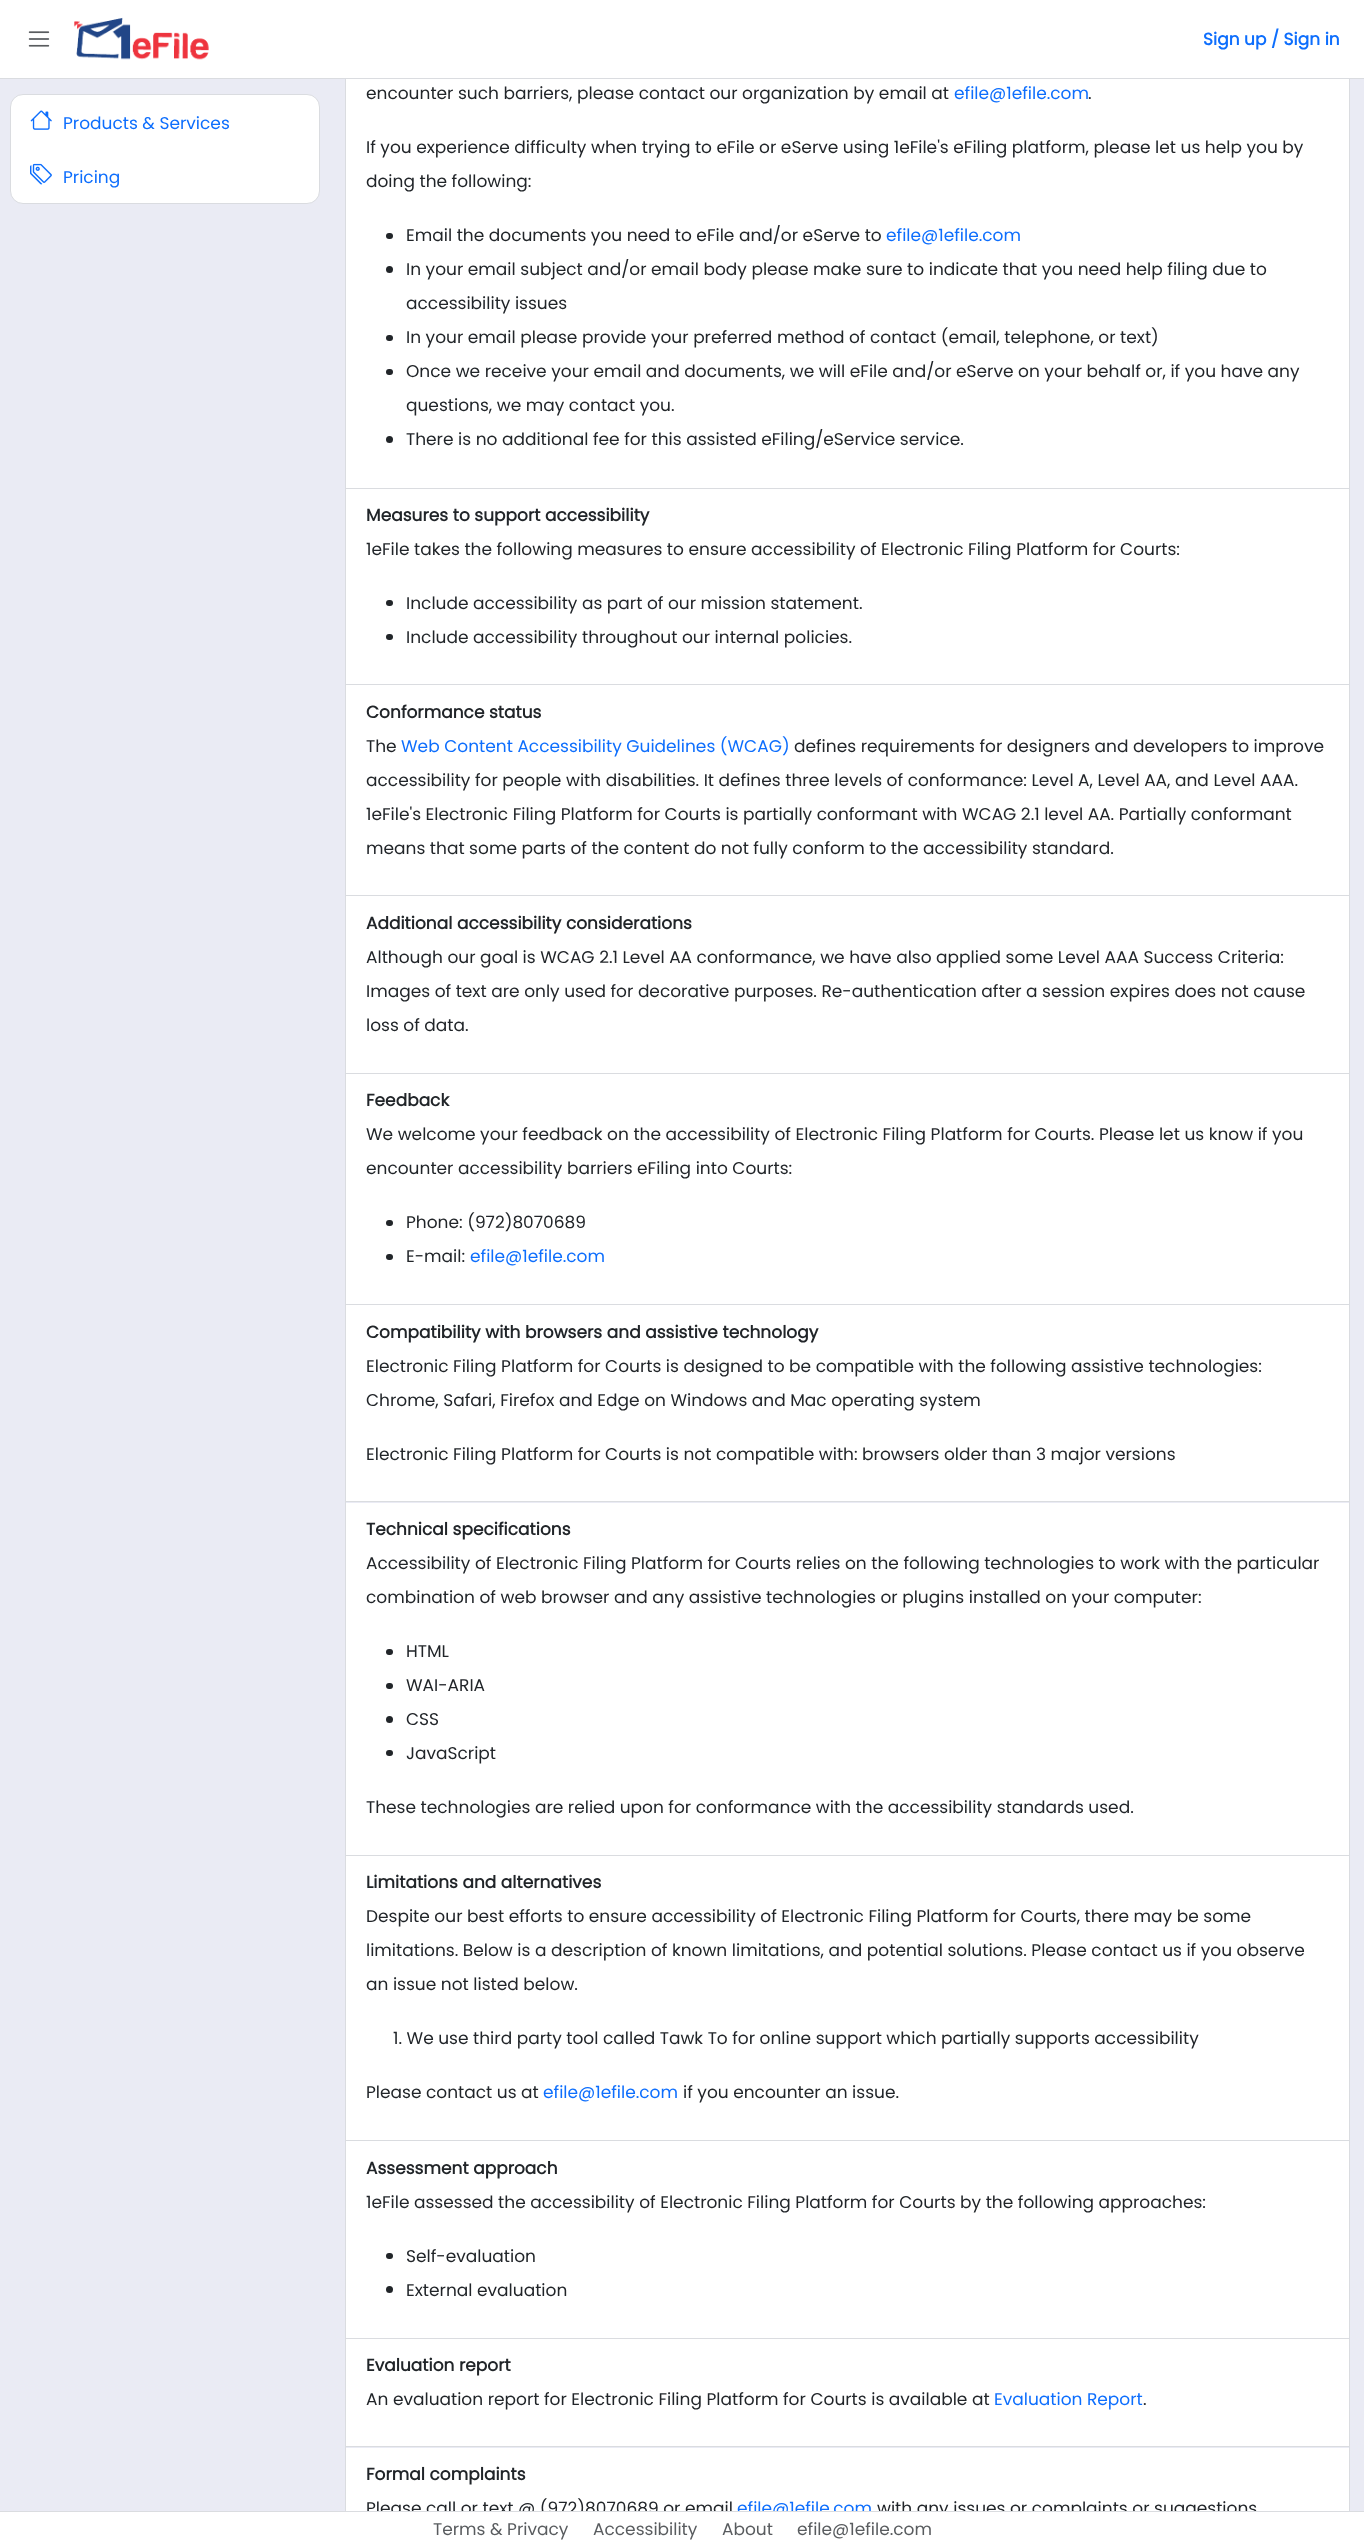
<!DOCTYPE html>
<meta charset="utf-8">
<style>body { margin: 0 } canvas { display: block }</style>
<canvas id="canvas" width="1364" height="2546"></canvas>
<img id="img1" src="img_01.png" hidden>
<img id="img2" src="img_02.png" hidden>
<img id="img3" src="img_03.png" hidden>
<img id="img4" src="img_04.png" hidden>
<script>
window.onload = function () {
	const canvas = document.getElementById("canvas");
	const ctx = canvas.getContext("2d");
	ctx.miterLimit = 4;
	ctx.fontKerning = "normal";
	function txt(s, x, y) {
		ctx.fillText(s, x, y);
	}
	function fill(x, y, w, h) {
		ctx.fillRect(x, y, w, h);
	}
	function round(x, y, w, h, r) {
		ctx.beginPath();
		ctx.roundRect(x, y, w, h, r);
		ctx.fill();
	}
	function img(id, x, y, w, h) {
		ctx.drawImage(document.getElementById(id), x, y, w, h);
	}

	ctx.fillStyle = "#EAEBF4";
	fill(0, 0, 1364, 2546);
	ctx.fillStyle = "#FFFFFF";
	fill(346, 79, 1003, 409);
	ctx.strokeStyle = "#DADCE0";
	ctx.strokeRect(345.5, -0.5, 1004, 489);
	fill(0, 0, 1364, 78);
	ctx.fillStyle = "#DADCE0";
	fill(0, 78, 1364, 1);
	img("img1", 28, 31, 22, 16);
	img("img2", 73, 17, 136, 43);
	ctx.fillStyle = "#FFFFFF";
	ctx.beginPath();
	ctx.roundRect(10.5, 94.5, 309, 109, 12.5);
	ctx.fill();
	ctx.stroke();
	img("img3", 30, 110, 22, 20);
	img("img4", 30, 163, 22, 22);
	ctx.fillStyle = "#212529";
	round(386, 233, 7, 6, 3);
	ctx.beginPath();
	ctx.arc(389.5, 269.5, 3.5, 0, Math.PI * 2);
	ctx.fill();
	round(386, 335, 7, 6, 3);
	round(386, 369, 7, 6, 3);
	ctx.beginPath();
	ctx.arc(389.5, 439.5, 3.5, 0, Math.PI * 2);
	ctx.fill();
	ctx.fillStyle = "#FFFFFF";
	fill(346, 489, 1003, 195);
	ctx.fillStyle = "#DADCE0";
	fill(1349, 489, 1, 1959);
	fill(345, 684, 1005, 1);
	fill(345, 489, 1, 196);
	ctx.fillStyle = "#212529";
	round(386, 600, 7, 6, 3);
	round(386, 634, 7, 6, 3);
	ctx.fillStyle = "#FFFFFF";
	fill(346, 685, 1003, 210);
	ctx.fillStyle = "#DADCE0";
	fill(345, 895, 1005, 1);
	fill(345, 685, 1, 211);
	ctx.fillStyle = "#FFFFFF";
	fill(346, 896, 1003, 177);
	ctx.fillStyle = "#DADCE0";
	fill(345, 1073, 1005, 1);
	fill(345, 896, 1, 178);
	ctx.fillStyle = "#FFFFFF";
	fill(346, 1074, 1003, 230);
	ctx.fillStyle = "#DADCE0";
	fill(345, 1304, 1005, 1);
	fill(345, 1074, 1, 231);
	ctx.fillStyle = "#212529";
	round(386, 1220, 7, 6, 3);
	round(386, 1254, 7, 6, 3);
	ctx.fillStyle = "#FFFFFF";
	fill(346, 1305, 1003, 196);
	ctx.fillStyle = "#DADCE0";
	fill(345, 1501, 1005, 1);
	fill(345, 1305, 1, 198);
	ctx.fillStyle = "#FFFFFF";
	fill(346, 1503, 1003, 352);
	ctx.fillStyle = "#DADCE0";
	fill(345, 1855, 1005, 1);
	fill(345, 1503, 1, 353);
	ctx.fillStyle = "#212529";
	round(386, 1649, 7, 6, 3);
	round(386, 1683, 7, 6, 3);
	ctx.beginPath();
	ctx.arc(389.5, 1719.5, 3.5, 0, Math.PI * 2);
	ctx.fill();
	round(386, 1750, 7, 6, 3);
	ctx.fillStyle = "#FFFFFF";
	fill(346, 1856, 1003, 284);
	ctx.fillStyle = "#DADCE0";
	fill(345, 2140, 1005, 1);
	fill(345, 1856, 1, 285);
	ctx.fillStyle = "#FFFFFF";
	fill(346, 2141, 1003, 197);
	ctx.fillStyle = "#DADCE0";
	fill(345, 2338, 1005, 1);
	fill(345, 2141, 1, 198);
	ctx.fillStyle = "#212529";
	round(386, 2253, 7, 6, 3);
	ctx.beginPath();
	ctx.arc(389.5, 2289.5, 3.5, 0, Math.PI * 2);
	ctx.fill();
	ctx.fillStyle = "#FFFFFF";
	fill(346, 2339, 1003, 107);
	ctx.fillStyle = "#DADCE0";
	fill(345, 2446, 1005, 1);
	fill(345, 2339, 1, 109);
	ctx.fillStyle = "#FFFFFF";
	fill(346, 2448, 1003, 63);
	ctx.fillStyle = "#DADCE0";
	ctx.beginPath();
	ctx.moveTo(345, 2448);
	ctx.lineTo(1350, 2448);
	ctx.lineTo(1350, 2544);
	ctx.bezierCurveTo(1350, 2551, 1344, 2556, 1338, 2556);
	ctx.lineTo(358, 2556);
	ctx.bezierCurveTo(351, 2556, 345, 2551, 345, 2544);
	ctx.closePath();
	ctx.moveTo(346, 2448);
	ctx.lineTo(1349, 2448);
	ctx.lineTo(1349, 2544);
	ctx.bezierCurveTo(1349, 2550, 1344, 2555, 1338, 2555);
	ctx.lineTo(358, 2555);
	ctx.bezierCurveTo(351, 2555, 346, 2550, 346, 2544);
	ctx.closePath();
	ctx.fill("evenodd");
	ctx.font = "bold 17px Poppins";
	ctx.fillStyle = "#0D6EFD";
	txt("Sign up / Sign in", 1203, 45);
	ctx.font = "17px Poppins";
	txt("Products & Services", 63, 129);
	txt("Pricing", 63, 183);
	ctx.fillStyle = "#212529";
	txt("encounter such barriers, please contact our organization by email at", 366, 99);
	ctx.fillStyle = "#0D6EFD";
	txt("efile@1efile.com", 954, 99);
	ctx.fillStyle = "#212529";
	txt(".", 1088, 99);
	txt("If you experience difficulty when trying to eFile or eServe using 1eFile's eFiling platform, please let us help you by", 366, 153);
	txt("doing the following:", 366, 187);
	txt("Email the documents you need to eFile and/or eServe to", 406, 241);
	ctx.fillStyle = "#0D6EFD";
	txt("efile@1efile.com", 886, 241);
	ctx.fillStyle = "#212529";
	txt("In your email subject and/or email body please make sure to indicate that you need help filing due to", 406, 275);
	txt("accessibility issues", 406, 309);
	txt("In your email please provide your preferred method of contact (email, telephone, or text)", 406, 343);
	txt("Once we receive your email and documents, we will eFile and/or eServe on your behalf or, if you have any", 406, 377);
	txt("questions, we may contact you.", 406, 411);
	txt("There is no additional fee for this assisted eFiling/eService service.", 406, 445);
	ctx.font = "bold 17px Poppins";
	txt("Measures to support accessibility", 366, 521);
	ctx.font = "17px Poppins";
	txt("1eFile takes the following measures to ensure accessibility of Electronic Filing Platform for Courts:", 366, 555);
	txt("Include accessibility as part of our mission statement.", 406, 609);
	txt("Include accessibility throughout our internal policies.", 406, 643);
	ctx.font = "bold 17px Poppins";
	txt("Conformance status", 366, 718);
	ctx.font = "17px Poppins";
	txt("The", 366, 752);
	ctx.fillStyle = "#0D6EFD";
	txt("Web Content Accessibility Guidelines (WCAG)", 401, 752);
	ctx.fillStyle = "#212529";
	txt("defines requirements for designers and developers to improve", 794, 752);
	txt("accessibility for people with disabilities. It defines three levels of conformance: Level A, Level AA, and Level AAA.", 366, 786);
	txt("1eFile's Electronic Filing Platform for Courts is partially conformant with WCAG 2.1 level AA. Partially conformant", 366, 820);
	txt("means that some parts of the content do not fully conform to the accessibility standard.", 366, 854);
	ctx.font = "bold 17px Poppins";
	txt("Additional accessibility considerations", 366, 929);
	ctx.font = "17px Poppins";
	txt("Although our goal is WCAG 2.1 Level AA conformance, we have also applied some Level AAA Success Criteria:", 366, 963);
	txt("Images of text are only used for decorative purposes. Re-authentication after a session expires does not cause", 366, 997);
	txt("loss of data.", 366, 1031);
	ctx.font = "bold 17px Poppins";
	txt("Feedback", 366, 1106);
	ctx.font = "17px Poppins";
	txt("We welcome your feedback on the accessibility of Electronic Filing Platform for Courts. Please let us know if you", 366, 1140);
	txt("encounter accessibility barriers eFiling into Courts:", 366, 1174);
	txt("Phone: (972)8070689", 406, 1228);
	txt("E-mail:", 406, 1262);
	ctx.fillStyle = "#0D6EFD";
	txt("efile@1efile.com", 470, 1262);
	ctx.font = "bold 17px Poppins";
	ctx.fillStyle = "#212529";
	txt("Compatibility with browsers and assistive technology", 366, 1338);
	ctx.font = "17px Poppins";
	txt("Electronic Filing Platform for Courts is designed to be compatible with the following assistive technologies:", 366, 1372);
	txt("Chrome, Safari, Firefox and Edge on Windows and Mac operating system", 366, 1406);
	txt("Electronic Filing Platform for Courts is not compatible with: browsers older than 3 major versions", 366, 1460);
	ctx.font = "bold 17px Poppins";
	txt("Technical specifications", 366, 1535);
	ctx.font = "17px Poppins";
	txt("Accessibility of Electronic Filing Platform for Courts relies on the following technologies to work with the particular", 366, 1569);
	txt("combination of web browser and any assistive technologies or plugins installed on your computer:", 366, 1603);
	txt("HTML", 406, 1657);
	txt("WAI-ARIA", 406, 1691);
	txt("CSS", 406, 1725);
	txt("JavaScript", 406, 1759);
	txt("These technologies are relied upon for conformance with the accessibility standards used.", 366, 1813);
	ctx.font = "bold 17px Poppins";
	txt("Limitations and alternatives", 366, 1888);
	ctx.font = "17px Poppins";
	txt("Despite our best efforts to ensure accessibility of Electronic Filing Platform for Courts, there may be some", 366, 1922);
	txt("limitations. Below is a description of known limitations, and potential solutions. Please contact us if you observe", 366, 1956);
	txt("an issue not listed below.", 366, 1990);
	txt("1. We use third party tool called Tawk To for online support which partially supports accessibility", 393, 2044);
	txt("Please contact us at", 366, 2098);
	ctx.fillStyle = "#0D6EFD";
	txt("efile@1efile.com", 543, 2098);
	ctx.fillStyle = "#212529";
	txt("if you encounter an issue.", 683, 2098);
	ctx.font = "bold 17px Poppins";
	txt("Assessment approach", 366, 2174);
	ctx.font = "17px Poppins";
	txt("1eFile assessed the accessibility of Electronic Filing Platform for Courts by the following approaches:", 366, 2208);
	txt("Self-evaluation", 406, 2262);
	txt("External evaluation", 406, 2296);
	ctx.font = "bold 17px Poppins";
	txt("Evaluation report", 366, 2371);
	ctx.font = "17px Poppins";
	txt("An evaluation report for Electronic Filing Platform for Courts is available at", 366, 2405);
	ctx.fillStyle = "#0D6EFD";
	txt("Evaluation Report", 994, 2405);
	ctx.fillStyle = "#212529";
	txt(".", 1143, 2405);
	ctx.font = "bold 17px Poppins";
	txt("Formal complaints", 366, 2480);
	ctx.font = "17px Poppins";
	txt("Please call or text @ (972)8070689 or email", 366, 2514);
	ctx.fillStyle = "#0D6EFD";
	txt("efile@1efile.com", 737, 2514);
	ctx.fillStyle = "#212529";
	txt("with any issues or complaints or suggestions", 877, 2514);
	ctx.fillStyle = "#FFFFFF";
	fill(0, 2512, 1364, 34);
	ctx.fillStyle = "#DADCE0";
	fill(0, 2511, 1364, 1);
	ctx.fillStyle = "#595C5F";
	txt("Terms & Privacy", 433, 2535);
	txt("Accessibility", 593, 2535);
	txt("About", 722, 2535);
	txt("efile@1efile.com", 797, 2535);
};
</script>
